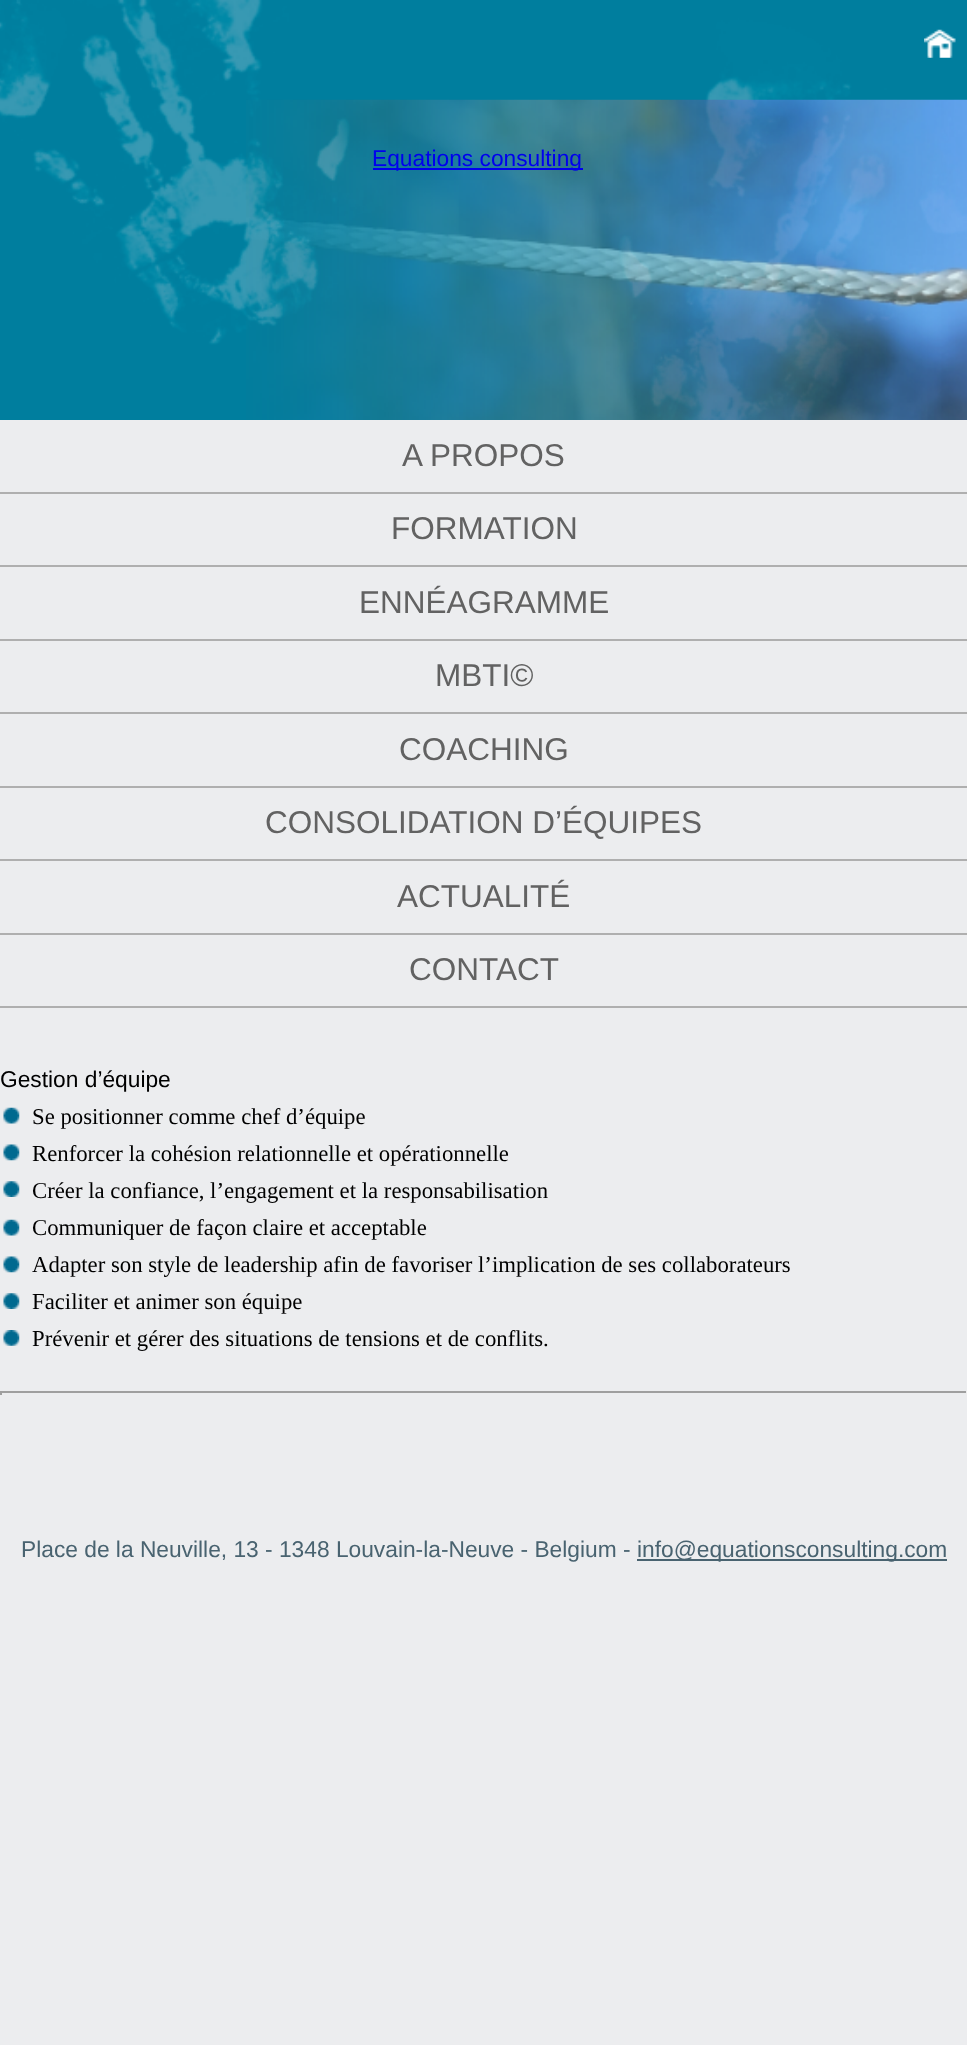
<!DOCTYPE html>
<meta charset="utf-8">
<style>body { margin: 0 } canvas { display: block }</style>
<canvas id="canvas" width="967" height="2045"></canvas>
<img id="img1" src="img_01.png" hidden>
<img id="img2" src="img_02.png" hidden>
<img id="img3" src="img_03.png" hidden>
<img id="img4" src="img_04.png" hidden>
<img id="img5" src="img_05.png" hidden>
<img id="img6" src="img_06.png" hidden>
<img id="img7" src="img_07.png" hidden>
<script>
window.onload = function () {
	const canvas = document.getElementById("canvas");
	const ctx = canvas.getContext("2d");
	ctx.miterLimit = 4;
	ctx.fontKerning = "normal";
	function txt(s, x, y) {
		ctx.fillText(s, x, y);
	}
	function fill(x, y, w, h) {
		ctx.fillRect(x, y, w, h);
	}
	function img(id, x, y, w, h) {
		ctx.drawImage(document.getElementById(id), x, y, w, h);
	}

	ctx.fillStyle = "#ECEDEF";
	fill(0, 0, 967, 2045);
	img("img1", 0, 0, 967, 420);
	img("img2", 924, 29, 32, 29);
	img("img3", 246, 99, 721, 321);
	ctx.fillStyle = "#0000EE";
	fill(373, 168, 210, 2);
	ctx.fillStyle = "#AFAFAF";
	fill(0, 492, 967, 2);
	fill(0, 565, 967, 2);
	fill(0, 639, 967, 2);
	fill(0, 712, 967, 2);
	fill(0, 786, 967, 2);
	fill(0, 859, 967, 2);
	fill(0, 933, 967, 2);
	fill(0, 1006, 967, 2);
	img("img4", 3, 1107, 17, 17);
	img("img5", 3, 1144, 17, 17);
	img("img6", 3, 1181, 17, 16);
	img("img4", 3, 1219, 17, 17);
	img("img5", 3, 1256, 17, 17);
	img("img6", 3, 1293, 17, 16);
	img("img7", 3, 1330, 17, 16);
	ctx.fillStyle = "#9F9F9F";
	fill(0, 1391, 967, 2);
	ctx.fillStyle = "#EEEEEE";
	fill(966, 1391, 1, 4);
	ctx.fillStyle = "#9F9F9F";
	fill(0, 1391, 2, 4);
	ctx.fillStyle = "#496370";
	fill(637, 1559, 310, 2);
	ctx.font = "22.75px Liberation Sans";
	ctx.fillStyle = "#0000EE";
	txt("Equations consulting", 372, 166);
	ctx.font = "31.5px Liberation Sans";
	ctx.fillStyle = "#626262";
	txt("A PROPOS", 402, 466);
	txt("FORMATION", 391, 539);
	txt("ENNÉAGRAMME", 359, 613);
	txt("MBTI©", 435, 686);
	txt("COACHING", 399, 760);
	txt("CONSOLIDATION D’ÉQUIPES", 265, 833);
	txt("ACTUALITÉ", 397, 907);
	txt("CONTACT", 409, 980);
	ctx.font = "22.75px Liberation Sans";
	ctx.fillStyle = "#000000";
	txt("Gestion d’équipe", 0, 1087);
	ctx.font = "22.75px Liberation Serif";
	txt("Se positionner comme chef d’équipe", 32, 1124);
	txt("Renforcer la cohésion relationnelle et opérationnelle", 32, 1161);
	txt("Créer la confiance, l’engagement et la responsabilisation", 32, 1198);
	txt("Communiquer de façon claire et acceptable", 32, 1235);
	txt("Adapter son style de leadership afin de favoriser l’implication de ses collaborateurs", 32, 1272);
	txt("Faciliter et animer son équipe", 32, 1309);
	txt("Prévenir et gérer des situations de tensions et de conflits.", 32, 1346);
	ctx.font = "22.75px Liberation Sans";
	ctx.fillStyle = "#496370";
	txt("Place de la Neuville, 13 - 1348 Louvain-la-Neuve - Belgium -", 21, 1557);
	txt("info@equationsconsulting.com", 637, 1557);
};
</script>
